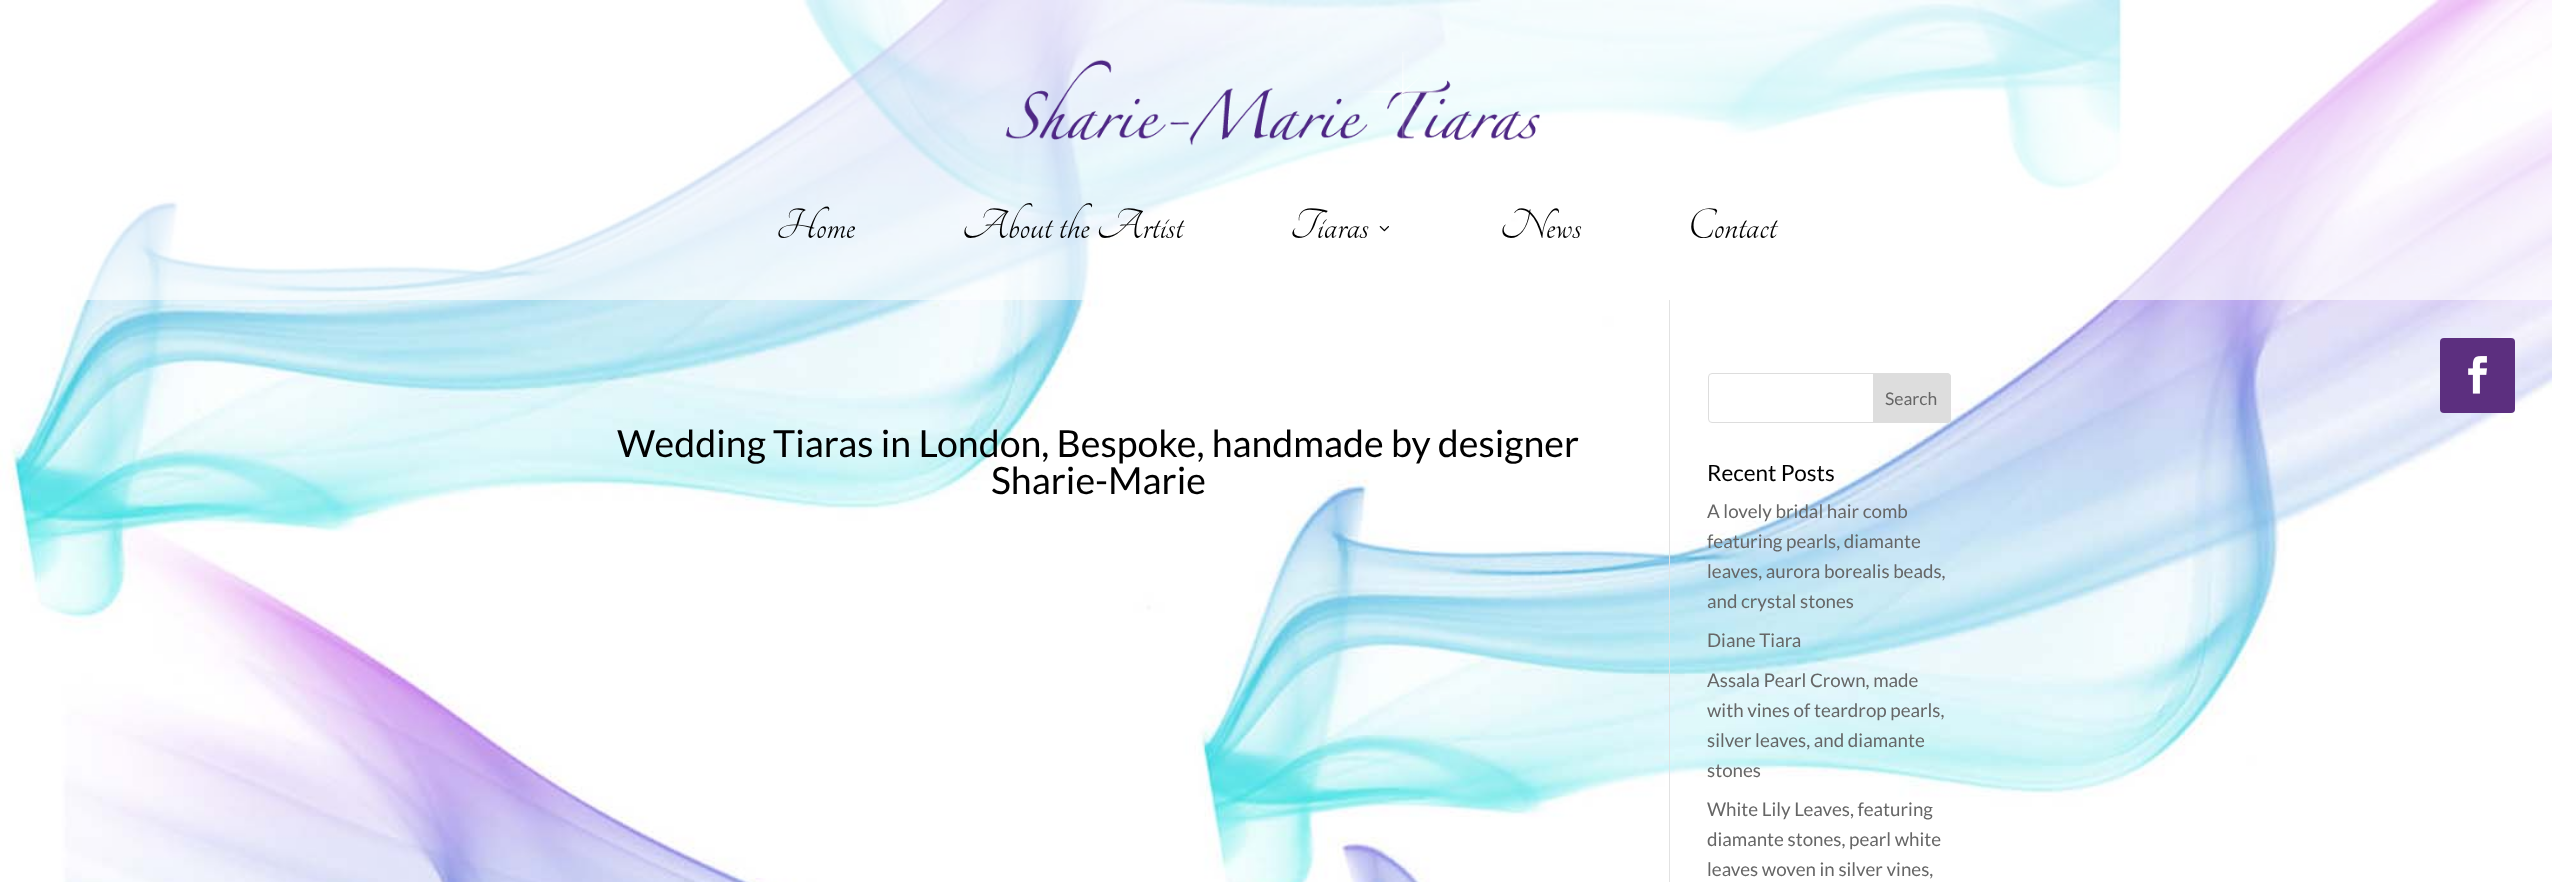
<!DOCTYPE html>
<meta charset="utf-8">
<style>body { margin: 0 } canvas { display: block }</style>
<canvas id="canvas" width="2552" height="882"></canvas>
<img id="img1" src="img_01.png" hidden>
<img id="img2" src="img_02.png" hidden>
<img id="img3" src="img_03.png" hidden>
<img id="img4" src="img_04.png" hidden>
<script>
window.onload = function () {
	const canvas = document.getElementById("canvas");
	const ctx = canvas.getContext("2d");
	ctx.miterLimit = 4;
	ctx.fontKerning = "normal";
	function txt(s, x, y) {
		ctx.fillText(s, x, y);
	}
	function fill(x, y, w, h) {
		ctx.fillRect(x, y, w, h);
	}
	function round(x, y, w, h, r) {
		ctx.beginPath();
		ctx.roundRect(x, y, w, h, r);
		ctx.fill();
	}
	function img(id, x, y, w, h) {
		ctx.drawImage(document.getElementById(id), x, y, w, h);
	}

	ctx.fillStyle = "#FFFFFF";
	fill(0, 0, 2552, 882);
	img("img1", 0, 0, 2552, 882);
	ctx.fillStyle = "rgba(255, 255, 255, 0.63)";
	fill(81, 0, 2471, 300);
	img("img2", 1005, 52, 535, 94);
	img("img3", 1379, 226, 10, 6);
	ctx.fillStyle = "#5C2F7F";
	round(2440, 338, 75, 75, 4);
	img("img4", 2468, 356, 19, 38);
	ctx.fillStyle = "#E2E2E2";
	fill(1669, 300, 1, 582);
	ctx.fillStyle = "#FFFFFF";
	ctx.beginPath();
	ctx.roundRect(1708.5, 373.5, 242, 49, 3.5);
	ctx.fill();
	ctx.strokeStyle = "#DDDDDD";
	ctx.stroke();
	ctx.fillStyle = "#DDDDDD";
	ctx.beginPath();
	ctx.roundRect(1873.5, 373.5, 77, 49, [0, 3.5, 3.5, 0]);
	ctx.fill();
	ctx.stroke();
	ctx.font = "46.25px Tangerine";
	ctx.fillStyle = "#000000";
	txt("Home", 776, 238);
	txt("About the Artist", 962, 238);
	txt("Tiaras", 1290, 238);
	txt("News", 1500, 238);
	txt("Contact", 1688, 238);
	ctx.font = "37.5px Lato";
	txt("Wedding Tiaras in London, Bespoke, handmade by designer", 617, 457);
	txt("Sharie-Marie", 991, 494);
	ctx.font = "17.5px Lato";
	ctx.fillStyle = "#666666";
	txt("Search", 1885, 405);
	ctx.font = "22.5px Lato";
	ctx.fillStyle = "#000000";
	txt("Recent Posts", 1707, 481);
	ctx.font = "18.75px Lato";
	ctx.fillStyle = "#666666";
	txt("A lovely bridal hair comb", 1707, 518);
	txt("featuring pearls, diamante", 1707, 548);
	txt("leaves, aurora borealis beads,", 1707, 578);
	txt("and crystal stones", 1707, 608);
	txt("Diane Tiara", 1707, 647);
	txt("Assala Pearl Crown, made", 1707, 687);
	txt("with vines of teardrop pearls,", 1707, 717);
	txt("silver leaves, and diamante", 1707, 747);
	txt("stones", 1707, 777);
	txt("White Lily Leaves, featuring", 1707, 816);
	txt("diamante stones, pearl white", 1707, 846);
	txt("leaves woven in silver vines,", 1707, 876);
};
</script>
